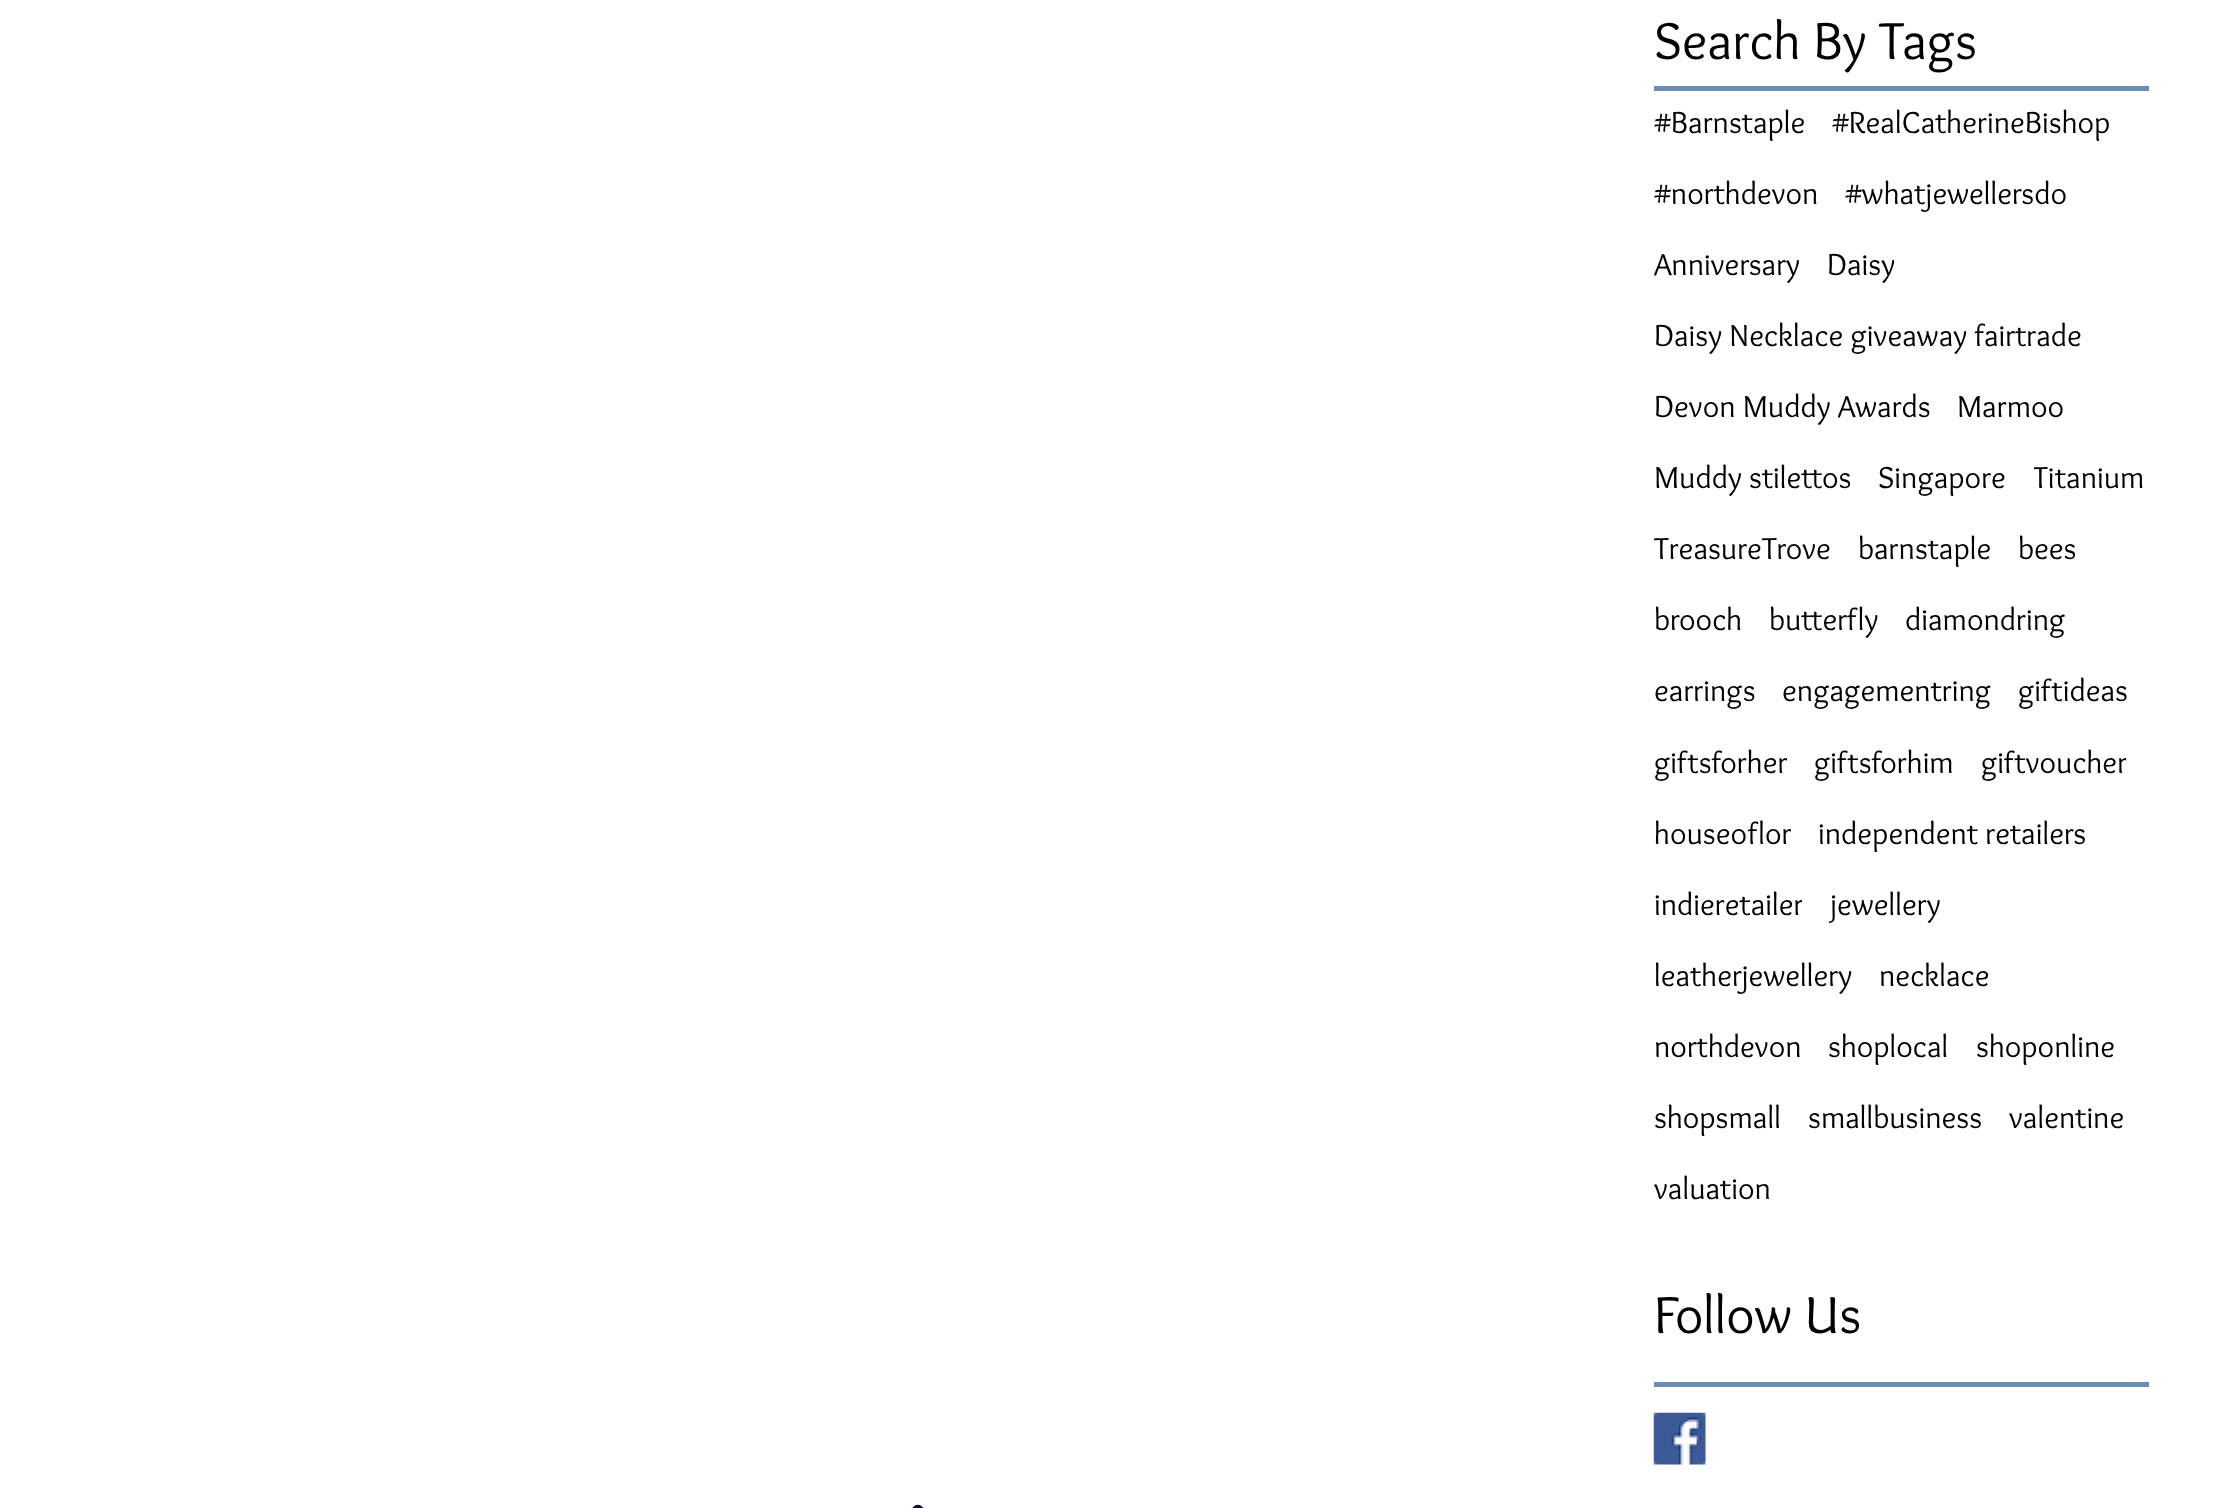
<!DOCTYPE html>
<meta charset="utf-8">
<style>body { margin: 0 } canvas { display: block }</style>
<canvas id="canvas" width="2231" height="1508"></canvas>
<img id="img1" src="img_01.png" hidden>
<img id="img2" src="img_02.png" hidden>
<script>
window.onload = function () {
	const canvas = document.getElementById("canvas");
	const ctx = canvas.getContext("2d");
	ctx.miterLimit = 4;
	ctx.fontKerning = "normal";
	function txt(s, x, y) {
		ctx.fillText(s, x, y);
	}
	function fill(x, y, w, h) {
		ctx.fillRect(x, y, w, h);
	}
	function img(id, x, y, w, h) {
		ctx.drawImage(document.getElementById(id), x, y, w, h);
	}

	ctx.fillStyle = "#FFFFFF";
	fill(0, 0, 2231, 1508);
	ctx.fillStyle = "#698EB3";
	fill(1654, 86, 495, 5);
	fill(1654, 1382, 495, 5);
	img("img1", 1653, 1412, 53, 53);
	img("img2", 912, 1504, 12, 4);
	ctx.font = "54px Overlock";
	ctx.fillStyle = "#000000";
	txt("Search By Tags", 1654, 59);
	ctx.font = "31.5px Overlock";
	txt("#Barnstaple", 1654, 133);
	txt("#RealCatherineBishop", 1832, 133);
	txt("#northdevon", 1654, 204);
	txt("#whatjewellersdo", 1845, 204);
	txt("Anniversary", 1654, 275);
	txt("Daisy", 1827, 275);
	txt("Daisy Necklace giveaway fairtrade", 1654, 346);
	txt("Devon Muddy Awards", 1654, 417);
	txt("Marmoo", 1957, 417);
	txt("Muddy stilettos", 1654, 488);
	txt("Singapore", 1878, 488);
	ctx.save();
	ctx.beginPath();
	ctx.rect(2034, 457, 110, 45);
	ctx.clip();
	txt("Titanium", 2033, 488);
	ctx.restore();
	txt("TreasureTrove", 1654, 559);
	txt("barnstaple", 1858, 559);
	txt("bees", 2018, 559);
	txt("brooch", 1654, 630);
	txt("butterfly", 1769, 630);
	txt("diamondring", 1905, 630);
	txt("earrings", 1654, 701);
	txt("engagementring", 1782, 701);
	txt("giftideas", 2018, 701);
	txt("giftsforher", 1654, 773);
	txt("giftsforhim", 1814, 773);
	ctx.save();
	ctx.beginPath();
	ctx.rect(1980, 740, 146, 45);
	ctx.clip();
	txt("giftvoucher", 1981, 773);
	ctx.restore();
	txt("houseoflor", 1654, 844);
	txt("independent retailers", 1818, 844);
	ctx.save();
	ctx.beginPath();
	ctx.rect(1654, 884, 148, 43);
	ctx.clip();
	txt("indieretailer", 1654, 915);
	ctx.restore();
	ctx.save();
	ctx.beginPath();
	ctx.rect(1829, 884, 113, 43);
	ctx.clip();
	txt("jewellery", 1830, 915);
	ctx.restore();
	txt("leatherjewellery", 1654, 986);
	txt("necklace", 1879, 986);
	txt("northdevon", 1654, 1057);
	txt("shoplocal", 1828, 1057);
	txt("shoponline", 1976, 1057);
	txt("shopsmall", 1654, 1128);
	txt("smallbusiness", 1808, 1128);
	txt("valentine", 2009, 1128);
	txt("valuation", 1654, 1199);
	ctx.font = "54px Overlock";
	txt("Follow Us", 1654, 1333);
};
</script>
